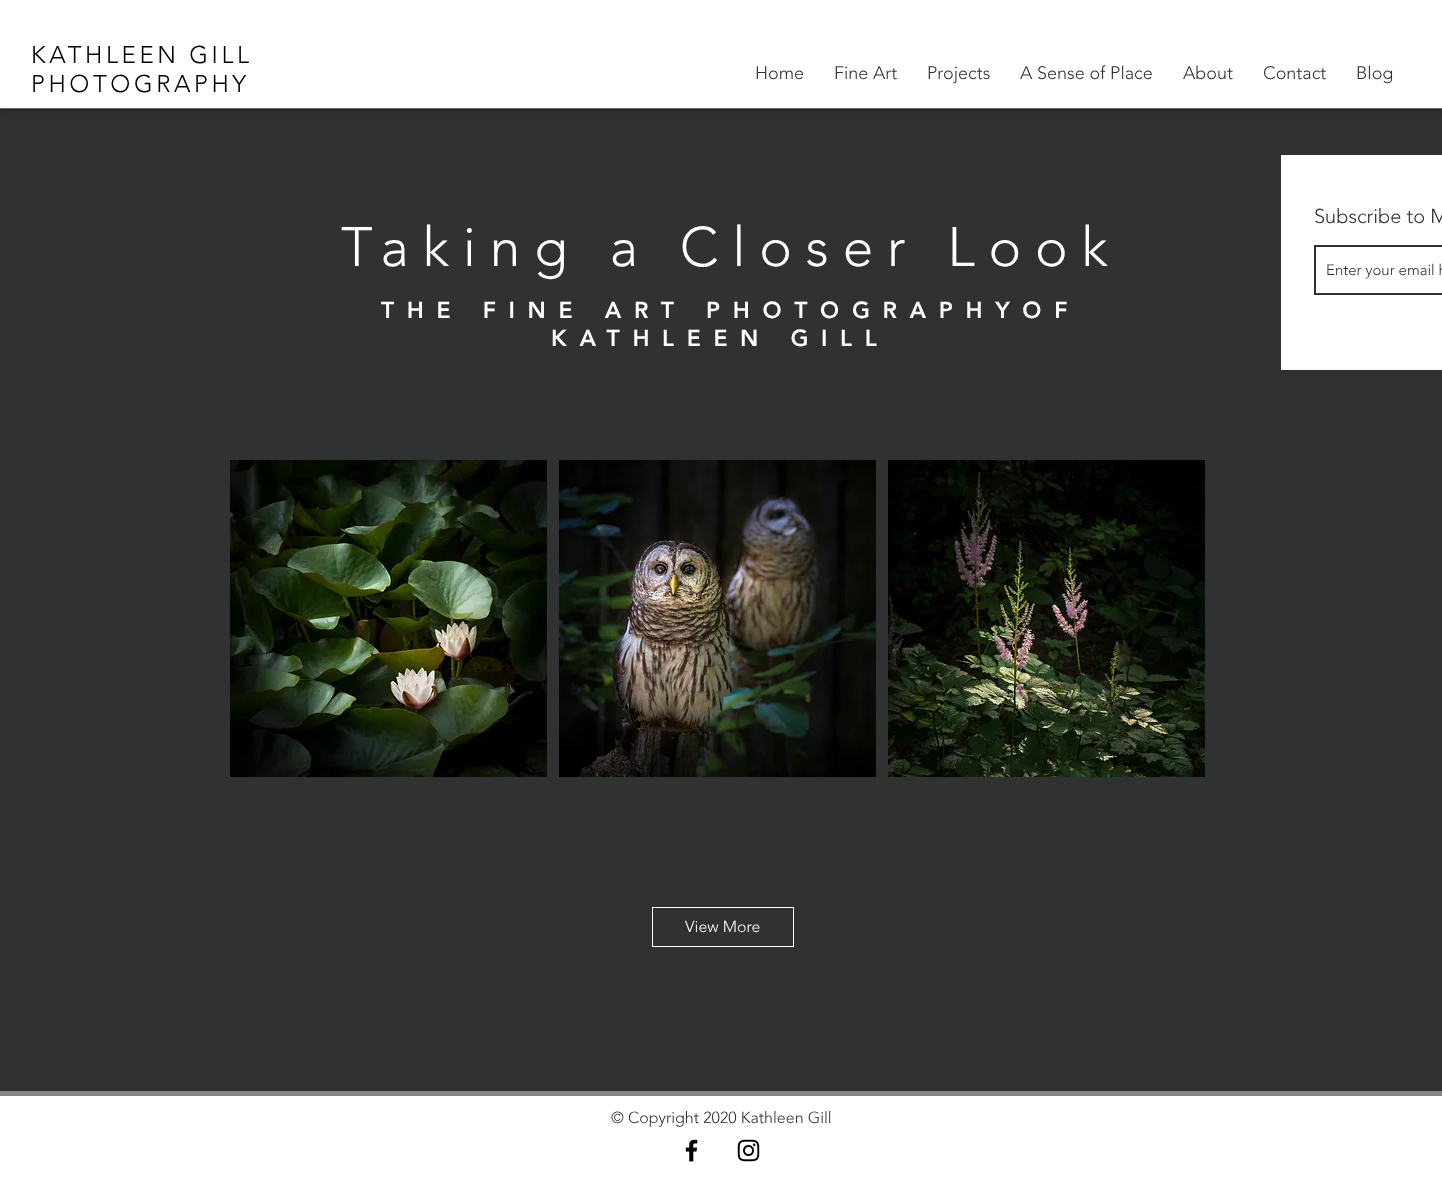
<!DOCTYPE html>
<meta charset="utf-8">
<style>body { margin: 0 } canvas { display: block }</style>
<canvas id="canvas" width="1442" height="1198"></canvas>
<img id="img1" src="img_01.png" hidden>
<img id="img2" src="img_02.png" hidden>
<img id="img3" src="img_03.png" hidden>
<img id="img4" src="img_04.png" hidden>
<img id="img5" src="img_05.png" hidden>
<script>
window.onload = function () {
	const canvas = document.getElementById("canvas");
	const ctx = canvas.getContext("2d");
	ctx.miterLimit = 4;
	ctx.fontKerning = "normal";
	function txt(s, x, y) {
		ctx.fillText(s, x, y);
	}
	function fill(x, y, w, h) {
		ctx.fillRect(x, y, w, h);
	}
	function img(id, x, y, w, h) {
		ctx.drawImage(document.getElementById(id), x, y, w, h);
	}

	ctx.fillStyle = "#303131";
	fill(0, 0, 1442, 1198);
	ctx.fillStyle = "rgba(0, 0, 0, 0.6)";
	ctx.filter = "blur(2.5px)";
	ctx.beginPath();
	ctx.rect(0, 0, 1442, 109);
	ctx.fill();
	ctx.filter = "none";
	ctx.fillStyle = "#FFFFFF";
	fill(0, 0, 1442, 108);
	ctx.fillStyle = "#666666";
	fill(0, 108, 1442, 1);
	ctx.fillStyle = "#FFFFFF";
	fill(1281, 155, 161, 215);
	ctx.strokeStyle = "#303131";
	ctx.lineWidth = 2;
	ctx.strokeRect(1315, 246, 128, 48);
	img("img1", 230, 460, 317, 317);
	img("img2", 559, 460, 317, 317);
	img("img3", 888, 460, 317, 317);
	ctx.strokeStyle = "#FFFFFF";
	ctx.lineWidth = 1;
	ctx.strokeRect(652.5, 907.5, 141, 39);
	fill(0, 1096, 1442, 102);
	ctx.fillStyle = "#858585";
	fill(0, 1091, 1442, 5);
	img("img4", 685, 1139, 13, 23);
	img("img5", 737, 1139, 23, 23);
	ctx.letterSpacing = "3.6px";
	ctx.font = "300 24px 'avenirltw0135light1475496'";
	ctx.fillStyle = "#000000";
	txt("KATHLEEN GILL", 31, 63);
	txt("PHOTOGRAPHY", 31, 92);
	ctx.letterSpacing = "0px";
	ctx.font = "300 18px 'avenirltw0135light1475496'";
	ctx.fillStyle = "#303131";
	txt("Home", 755, 79);
	txt("Fine Art", 834, 79);
	txt("Projects", 927, 79);
	txt("A Sense of Place", 1020, 79);
	txt("About", 1183, 79);
	txt("Contact", 1263, 79);
	txt("Blog", 1356, 79);
	ctx.letterSpacing = "13.75px";
	ctx.font = "300 55px 'avenirltw0135light1475496'";
	ctx.fillStyle = "#FFFFFF";
	txt("Taking a Closer Look", 341, 266);
	ctx.letterSpacing = "0px";
	ctx.font = "300 20px 'avenirltw0135light1475496'";
	ctx.fillStyle = "#303131";
	txt("Subscribe to M", 1314, 223);
	ctx.font = "300 15px 'avenirltw0135light1475496'";
	txt("Enter your email h", 1326, 275);
	ctx.letterSpacing = "12.65px";
	ctx.font = "900 23px 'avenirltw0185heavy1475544'";
	ctx.fillStyle = "#FFFFFF";
	txt("THE FINE ART PHOTOGRAPHYOF", 381, 318);
	txt("KATHLEEN GILL", 551, 346);
	ctx.letterSpacing = "0px";
	ctx.font = "300 16px 'avenirltw0135light1475496'";
	txt("View More", 685, 932);
	ctx.fillStyle = "#303131";
	txt("© Copyright 2020 Kathleen Gill", 611, 1123);
};
</script>
